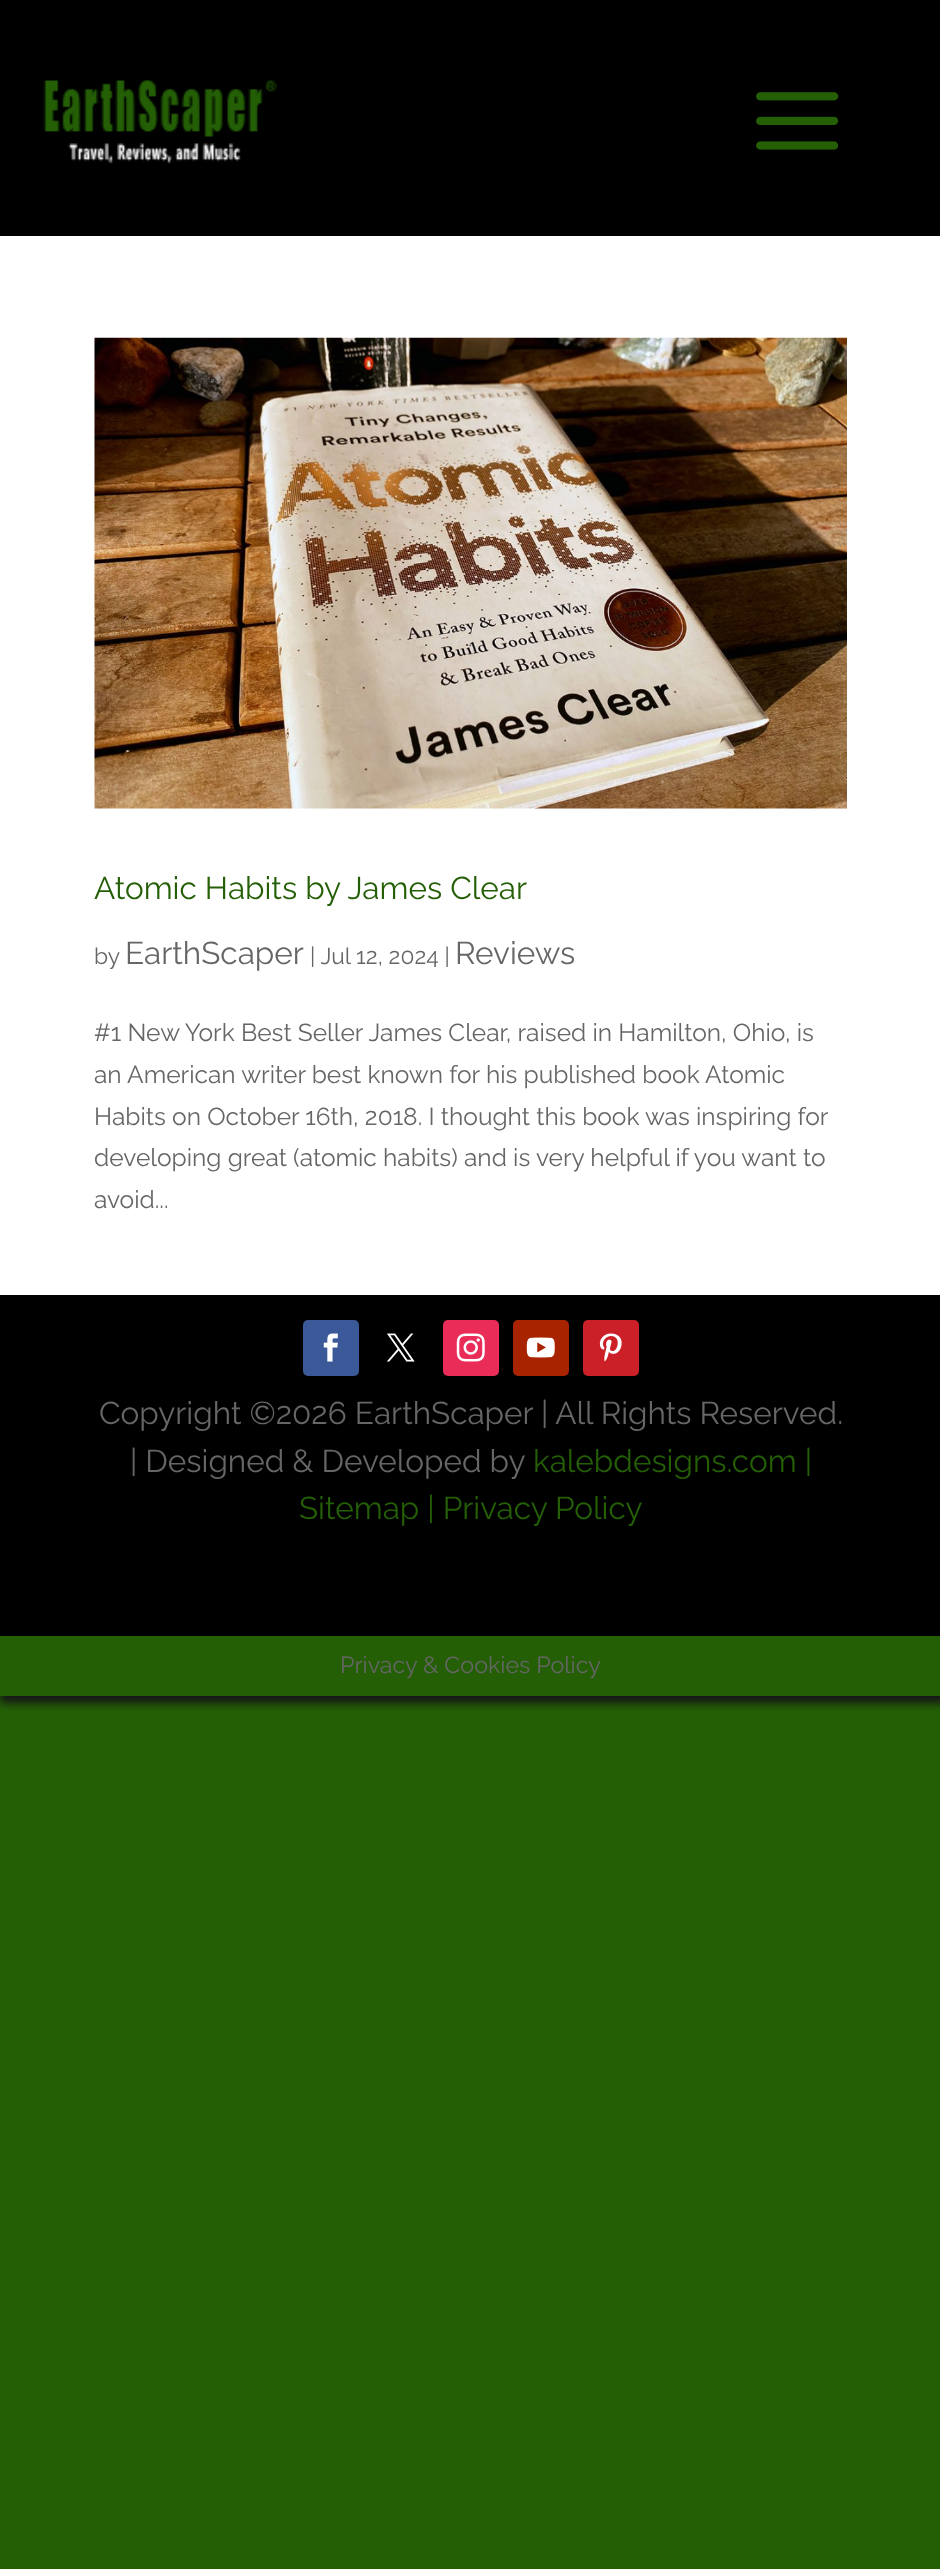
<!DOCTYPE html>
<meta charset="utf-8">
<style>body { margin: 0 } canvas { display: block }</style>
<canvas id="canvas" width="940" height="2569"></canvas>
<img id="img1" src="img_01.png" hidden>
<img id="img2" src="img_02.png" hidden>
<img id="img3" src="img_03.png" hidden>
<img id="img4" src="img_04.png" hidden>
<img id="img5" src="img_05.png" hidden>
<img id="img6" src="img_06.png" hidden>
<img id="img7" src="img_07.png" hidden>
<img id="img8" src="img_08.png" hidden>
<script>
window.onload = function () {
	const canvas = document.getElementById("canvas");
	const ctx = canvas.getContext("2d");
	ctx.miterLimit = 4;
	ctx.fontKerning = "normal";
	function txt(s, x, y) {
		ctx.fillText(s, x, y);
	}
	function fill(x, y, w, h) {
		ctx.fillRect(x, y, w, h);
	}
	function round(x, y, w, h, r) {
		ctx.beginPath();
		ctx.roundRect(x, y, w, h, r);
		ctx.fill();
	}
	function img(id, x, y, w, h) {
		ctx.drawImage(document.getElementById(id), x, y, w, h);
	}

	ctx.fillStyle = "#245F06";
	fill(0, 0, 940, 2569);
	ctx.fillStyle = "#000000";
	fill(0, 0, 940, 236);
	img("img1", 43, 80, 234, 84);
	img("img2", 756, 92, 83, 58);
	ctx.fillStyle = "#FFFFFF";
	fill(0, 236, 940, 1059);
	img("img3", 94, 337, 753, 472);
	ctx.save();
	ctx.beginPath();
	ctx.moveTo(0, 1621);
	ctx.lineTo(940, 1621);
	ctx.lineTo(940, 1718);
	ctx.lineTo(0, 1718);
	ctx.closePath();
	ctx.moveTo(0, 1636);
	ctx.lineTo(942, 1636);
	ctx.lineTo(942, 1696);
	ctx.lineTo(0, 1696);
	ctx.closePath();
	ctx.clip("evenodd");
	ctx.fillStyle = "#161616";
	ctx.filter = "blur(4.5px)";
	ctx.beginPath();
	ctx.rect(0, 1636, 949, 67);
	ctx.fill();
	ctx.filter = "none";
	ctx.restore();
	ctx.fillStyle = "#000000";
	fill(0, 1295, 940, 341);
	ctx.fillStyle = "#3B5998";
	round(303, 1320, 56, 56, 5);
	img("img4", 323, 1333, 15, 29);
	img("img5", 386, 1333, 29, 29);
	ctx.fillStyle = "#EA2C59";
	round(443, 1320, 56, 56, 5);
	img("img6", 456, 1333, 29, 29);
	ctx.fillStyle = "#A82400";
	round(513, 1320, 56, 56, 5);
	img("img7", 526, 1337, 29, 21);
	ctx.fillStyle = "#CB2027";
	round(583, 1320, 56, 56, 5);
	img("img8", 599, 1333, 23, 29);
	ctx.font = "31.5px Raleway";
	ctx.fillStyle = "#245F06";
	txt("Atomic Habits by James Clear", 94, 899);
	ctx.font = "22.75px Raleway";
	ctx.fillStyle = "#666666";
	txt("by", 94, 964);
	ctx.font = "31.5px Raleway";
	txt("EarthScaper", 125, 964);
	ctx.font = "22.75px Raleway";
	txt("| Jul 12, 2024 |", 310, 964);
	ctx.font = "31.5px Raleway";
	txt("Reviews", 455, 964);
	ctx.font = "24.5px Raleway";
	txt("#1 New York Best Seller James Clear, raised in Hamilton, Ohio, is", 94, 1041);
	txt("an American writer best known for his published book Atomic", 94, 1083);
	txt("Habits on October 16th, 2018. I thought this book was inspiring for", 94, 1125);
	txt("developing great (atomic habits) and is very helpful if you want to", 94, 1166);
	txt("avoid...", 94, 1208);
	ctx.font = "31.5px Raleway";
	txt("Copyright ©2026 EarthScaper | All Rights Reserved.", 99, 1424);
	txt("| Designed & Developed by", 130, 1472);
	ctx.fillStyle = "#245F06";
	txt("kalebdesigns.com |", 533, 1472);
	txt("Sitemap | Privacy Policy", 299, 1519);
	ctx.font = "23.25px Raleway";
	ctx.fillStyle = "#666666";
	txt("Privacy & Cookies Policy", 340, 1673);
};
</script>
